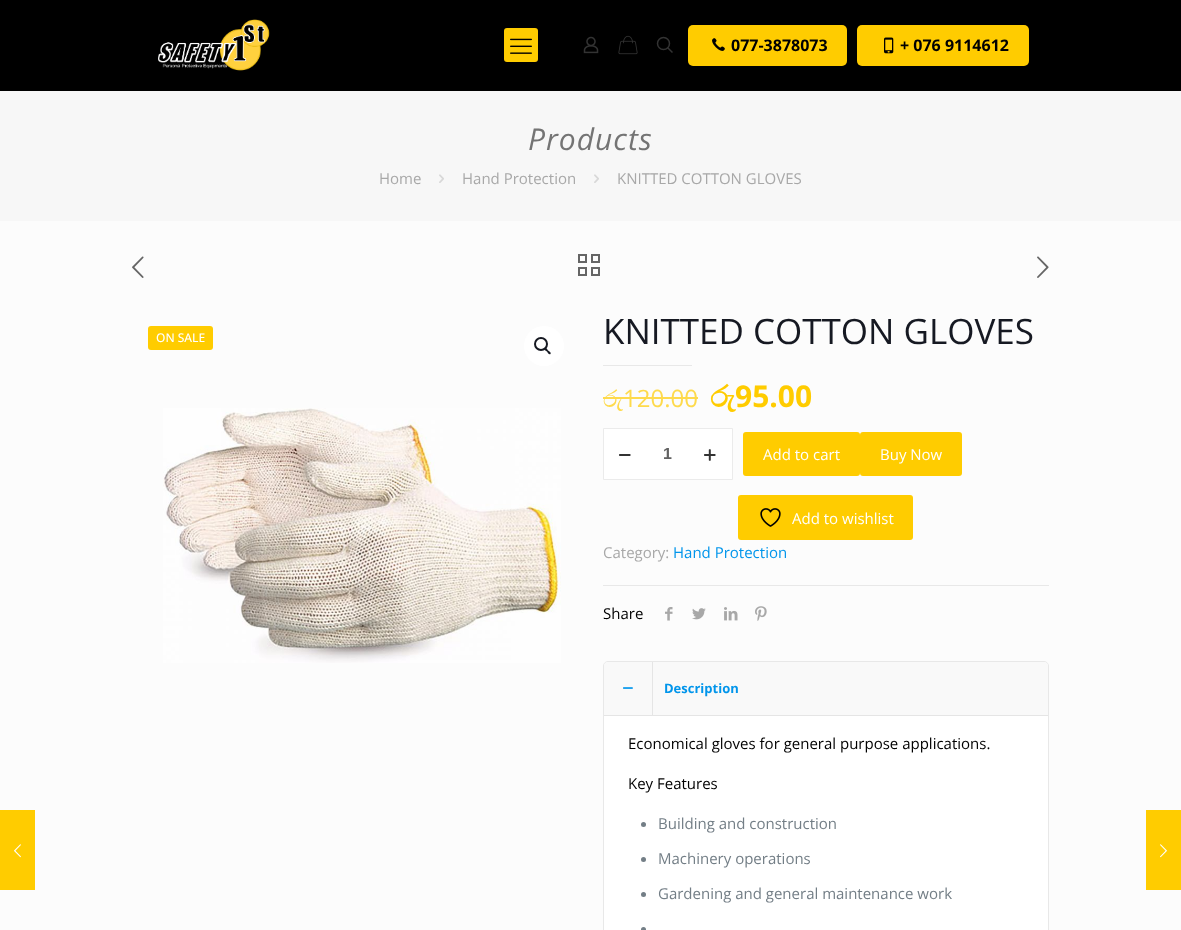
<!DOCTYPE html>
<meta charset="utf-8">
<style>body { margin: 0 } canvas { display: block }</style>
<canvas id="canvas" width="1181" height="930"></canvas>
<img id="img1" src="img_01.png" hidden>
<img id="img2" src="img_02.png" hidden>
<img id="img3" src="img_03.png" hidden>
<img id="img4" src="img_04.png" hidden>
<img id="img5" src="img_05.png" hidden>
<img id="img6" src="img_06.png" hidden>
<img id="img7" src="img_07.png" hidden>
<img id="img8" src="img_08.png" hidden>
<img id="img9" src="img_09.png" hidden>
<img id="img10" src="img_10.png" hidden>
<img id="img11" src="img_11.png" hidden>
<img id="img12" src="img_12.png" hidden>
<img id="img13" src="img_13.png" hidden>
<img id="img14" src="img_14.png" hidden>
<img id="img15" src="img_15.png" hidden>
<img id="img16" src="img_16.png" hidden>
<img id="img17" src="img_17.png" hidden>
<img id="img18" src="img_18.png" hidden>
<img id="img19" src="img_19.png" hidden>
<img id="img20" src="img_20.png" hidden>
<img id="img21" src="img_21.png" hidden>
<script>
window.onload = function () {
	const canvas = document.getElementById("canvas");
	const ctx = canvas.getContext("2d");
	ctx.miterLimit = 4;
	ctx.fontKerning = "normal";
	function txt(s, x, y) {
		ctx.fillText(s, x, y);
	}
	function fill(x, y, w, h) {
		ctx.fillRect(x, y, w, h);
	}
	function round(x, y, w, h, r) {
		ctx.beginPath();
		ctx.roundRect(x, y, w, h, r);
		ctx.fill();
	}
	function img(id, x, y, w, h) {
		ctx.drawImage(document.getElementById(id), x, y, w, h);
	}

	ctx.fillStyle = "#FCFCFC";
	fill(0, 0, 1181, 930);
	ctx.fillStyle = "#FFCC00";
	fill(0, 810, 35, 80);
	img("img1", 14, 844, 7, 14);
	ctx.fillStyle = "#000000";
	fill(0, 0, 1181, 91);
	img("img2", 158, 19, 112, 52);
	ctx.fillStyle = "#FFCC00";
	round(504, 28, 34, 34, 3);
	img("img3", 510, 38, 22, 16);
	img("img4", 583, 36, 16, 18);
	img("img5", 618, 35, 20, 20);
	ctx.beginPath();
	ctx.arc(663.5, 43.5, 6, 0, Math.PI * 2);
	ctx.strokeStyle = "#333333";
	ctx.lineWidth = 1.5;
	ctx.stroke();
	ctx.beginPath();
	ctx.moveTo(667.5, 47.5);
	ctx.lineTo(672.5, 52.5);
	ctx.stroke();
	round(688, 25, 159, 41, 5);
	img("img6", 712, 38, 13, 13);
	round(857, 25, 172, 41, 5);
	img("img7", 884, 37, 10, 17);
	ctx.fillStyle = "#F7F7F7";
	fill(0, 91, 1181, 130);
	img("img8", 439, 174, 5, 9);
	img("img8", 594, 174, 5, 9);
	img("img9", 132, 256, 12, 22);
	img("img10", 578, 254, 22, 22);
	img("img11", 1037, 256, 12, 22);
	ctx.fillStyle = "#FFCC00";
	round(148, 326, 65, 24, 3);
	img("img12", 163, 408, 398, 255);
	ctx.fillStyle = "#FFFFFF";
	ctx.beginPath();
	ctx.arc(544, 346, 20, 0, Math.PI * 2);
	ctx.fill();
	ctx.beginPath();
	ctx.arc(541, 344, 6, 0, Math.PI * 2);
	ctx.strokeStyle = "#161922";
	ctx.lineWidth = 2;
	ctx.stroke();
	ctx.fillStyle = "#161922";
	ctx.beginPath();
	ctx.moveTo(544.5, 348);
	ctx.bezierCurveTo(546, 347, 547.5, 349.5, 548, 350.5);
	ctx.bezierCurveTo(549, 351, 551.5, 352.5, 550.5, 354);
	ctx.bezierCurveTo(549, 355, 547.5, 352.5, 547, 351.5);
	ctx.bezierCurveTo(546, 351, 543.5, 349.5, 544.5, 348);
	ctx.closePath();
	ctx.fill();
	ctx.fillStyle = "#E8E8E8";
	fill(603, 365, 89, 1);
	ctx.fillStyle = "#FEDA4C";
	fill(603, 397, 20, 2);
	fill(623, 397, 75, 2);
	ctx.fillStyle = "#FFFFFF";
	ctx.beginPath();
	ctx.rect(603.5, 428.5, 129, 51);
	ctx.fill();
	ctx.strokeStyle = "#EBEBEB";
	ctx.lineWidth = 1;
	ctx.stroke();
	img("img13", 619, 454, 12, 2);
	img("img14", 704, 449, 12, 12);
	ctx.fillStyle = "#FFCC00";
	round(743, 432, 117, 44, 3);
	round(860, 432, 102, 44, 3);
	round(738, 495, 175, 45, 3);
	img("img15", 760, 508, 21, 19);
	ctx.fillStyle = "#E8E8E8";
	fill(603, 585, 446, 1);
	img("img16", 665, 607, 8, 14);
	img("img17", 692, 608, 14, 12);
	img("img18", 724, 607, 14, 14);
	img("img19", 755, 606, 12, 15);
	ctx.beginPath();
	ctx.roundRect(603.5, 661.5, 445, 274, 4.5);
	ctx.strokeStyle = "#E8E8E8";
	ctx.stroke();
	ctx.fillStyle = "#F9F9F9";
	ctx.beginPath();
	ctx.roundRect(604, 662, 444, 54, [4, 4, 0, 0]);
	ctx.fill();
	ctx.fillStyle = "#E5E5E5";
	fill(604, 715, 444, 1);
	img("img20", 623, 687, 10, 2);
	fill(652, 662, 1, 53);
	ctx.fillStyle = "#FFFFFF";
	fill(604, 716, 444, 214);
	ctx.fillStyle = "#737E86";
	ctx.beginPath();
	ctx.arc(643.5, 824.5, 2.5, 0, Math.PI * 2);
	ctx.fill();
	ctx.beginPath();
	ctx.arc(643.5, 859.5, 2.5, 0, Math.PI * 2);
	ctx.fill();
	ctx.beginPath();
	ctx.arc(643.5, 894.5, 2.5, 0, Math.PI * 2);
	ctx.fill();
	ctx.beginPath();
	ctx.arc(643.5, 929.5, 2.5, 0, Math.PI * 2);
	ctx.fill();
	ctx.fillStyle = "#FFCC00";
	fill(1146, 810, 35, 80);
	img("img21", 1160, 844, 7, 14);
	ctx.font = "bold 16px Open Sans";
	ctx.fillStyle = "#000000";
	txt("077-3878073", 731, 51);
	txt("+ 076 9114612", 900, 51);
	ctx.letterSpacing = "1px";
	ctx.font = "italic 30px Open Sans";
	ctx.fillStyle = "#747474";
	txt("Products", 528, 150);
	ctx.letterSpacing = "0px";
	ctx.font = "15px Open Sans";
	ctx.fillStyle = "#A8A8A8";
	txt("Home", 379, 184);
	txt("Hand Protection", 462, 184);
	txt("KNITTED COTTON GLOVES", 617, 184);
	ctx.font = "500 12px Open Sans";
	ctx.fillStyle = "#FFFFFF";
	txt("ON SALE", 156, 342);
	ctx.font = "35px Open Sans";
	ctx.fillStyle = "#161922";
	txt("KNITTED COTTON GLOVES", 603, 344);
	ctx.font = "24px FreeSerif";
	ctx.fillStyle = "#FEDA4C";
	txt("රු", 603, 407);
	ctx.font = "24px Open Sans";
	txt("120.00", 623, 407);
	ctx.font = "bold 30px FreeSerif";
	ctx.fillStyle = "#FFCC00";
	txt("රු", 710, 407);
	ctx.font = "bold 30px Open Sans";
	txt("95.00", 735, 407);
	ctx.font = "bold 16px Liberation Sans";
	ctx.fillStyle = "#626262";
	txt("1", 663, 459);
	ctx.font = "15px Open Sans";
	ctx.fillStyle = "#FFFFFF";
	txt("Add to cart", 763, 460);
	txt("Buy Now", 880, 460);
	txt("Add to wishlist", 792, 524);
	ctx.fillStyle = "#A8A8A8";
	txt("Category:", 603, 558);
	ctx.fillStyle = "#0095EB";
	txt("Hand Protection", 673, 558);
	ctx.fillStyle = "#000000";
	txt("Share", 603, 619);
	ctx.font = "bold 13px Open Sans";
	ctx.fillStyle = "#0095EB";
	txt("Description", 664, 693);
	ctx.font = "15px Open Sans";
	ctx.fillStyle = "#000000";
	txt("Economical gloves for general purpose applications.", 628, 749);
	txt("Key Features", 628, 789);
	ctx.fillStyle = "#737E86";
	txt("Building and construction", 658, 829);
	txt("Machinery operations", 658, 864);
	txt("Gardening and general maintenance work", 658, 899);
};
</script>
